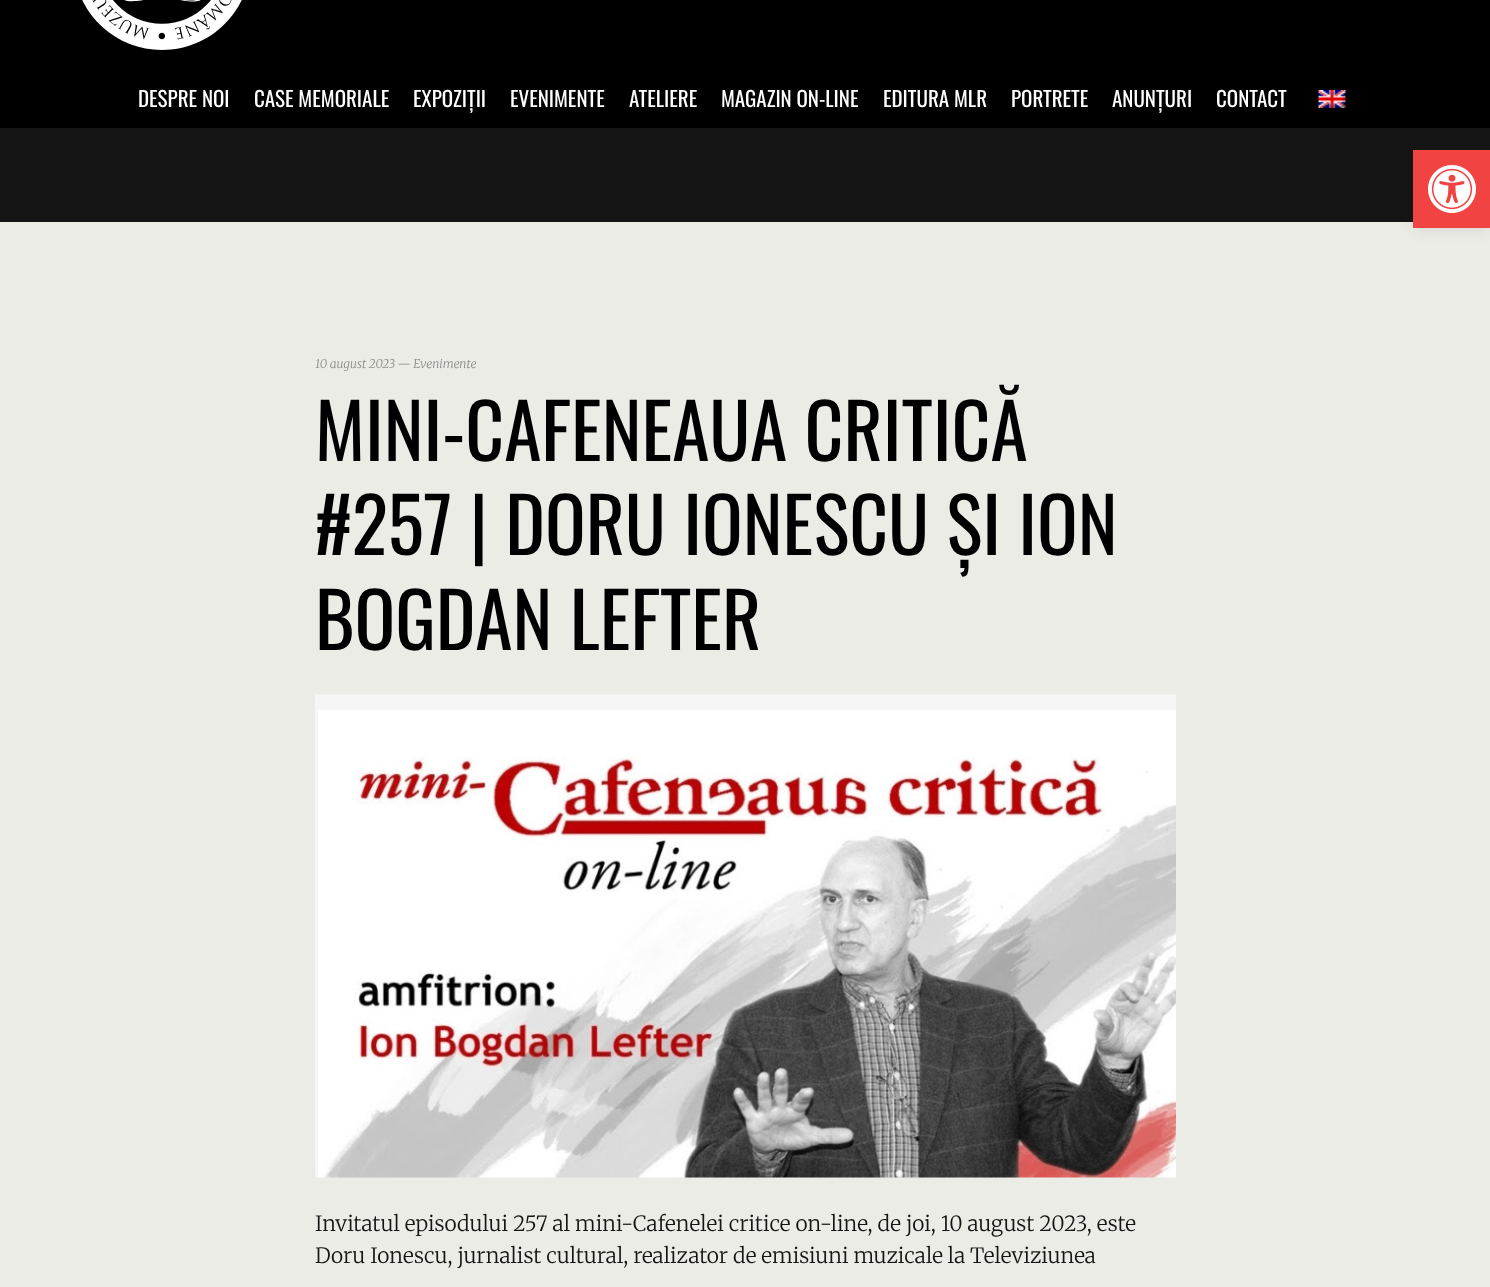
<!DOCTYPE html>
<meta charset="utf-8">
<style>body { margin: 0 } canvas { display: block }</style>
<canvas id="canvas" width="1490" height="1287"></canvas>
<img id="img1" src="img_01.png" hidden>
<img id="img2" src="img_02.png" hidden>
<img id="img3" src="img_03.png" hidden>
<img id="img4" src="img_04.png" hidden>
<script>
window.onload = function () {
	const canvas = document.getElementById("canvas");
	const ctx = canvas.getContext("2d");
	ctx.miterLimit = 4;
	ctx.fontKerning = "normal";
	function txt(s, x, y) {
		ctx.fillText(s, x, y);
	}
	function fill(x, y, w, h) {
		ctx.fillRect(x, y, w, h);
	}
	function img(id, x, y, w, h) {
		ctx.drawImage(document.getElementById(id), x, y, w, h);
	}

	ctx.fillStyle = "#151515";
	fill(0, 0, 1490, 1287);
	ctx.fillStyle = "#000000";
	fill(0, 0, 1490, 128);
	img("img1", 82, 0, 160, 50);
	img("img2", 1318, 90, 28, 18);
	ctx.fillStyle = "#EBECE6";
	fill(0, 222, 1490, 1065);
	ctx.fillStyle = "rgba(0, 0, 0, 0.1)";
	ctx.filter = "blur(7.5px)";
	ctx.beginPath();
	ctx.rect(1413, 150, 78, 78);
	ctx.fill();
	ctx.filter = "none";
	ctx.fillStyle = "#F24343";
	fill(1413, 150, 77, 78);
	img("img3", 1428, 165, 48, 48);
	img("img4", 315, 694, 861, 484);
	ctx.font = "21px Oswald";
	ctx.fillStyle = "#FFFFFF";
	txt("DESPRE NOI", 138, 107);
	txt("CASE MEMORIALE", 254, 107);
	txt("EXPOZIȚII", 413, 107);
	txt("EVENIMENTE", 510, 107);
	txt("ATELIERE", 629, 107);
	txt("MAGAZIN ON-LINE", 721, 107);
	txt("EDITURA MLR", 883, 107);
	txt("PORTRETE", 1011, 107);
	txt("ANUNȚURI", 1112, 107);
	txt("CONTACT", 1216, 107);
	ctx.font = "italic 300 12px Merriweather";
	ctx.fillStyle = "#8B8B8B";
	txt("10 august 2023 — Evenimente", 315, 368);
	ctx.font = "75.6px Oswald";
	ctx.fillStyle = "#000000";
	txt("MINI-CAFENEAUA CRITICĂ", 315, 461);
	txt("#257 | DORU IONESCU ȘI ION", 315, 555);
	txt("BOGDAN LEFTER", 315, 650);
	ctx.font = "300 21px Merriweather";
	ctx.fillStyle = "#151515";
	txt("Invitatul episodului 257 al mini-Cafenelei critice on-line, de joi, 10 august 2023, este", 315, 1231);
	txt("Doru Ionescu, jurnalist cultural, realizator de emisiuni muzicale la Televiziunea", 315, 1263);
};
</script>
